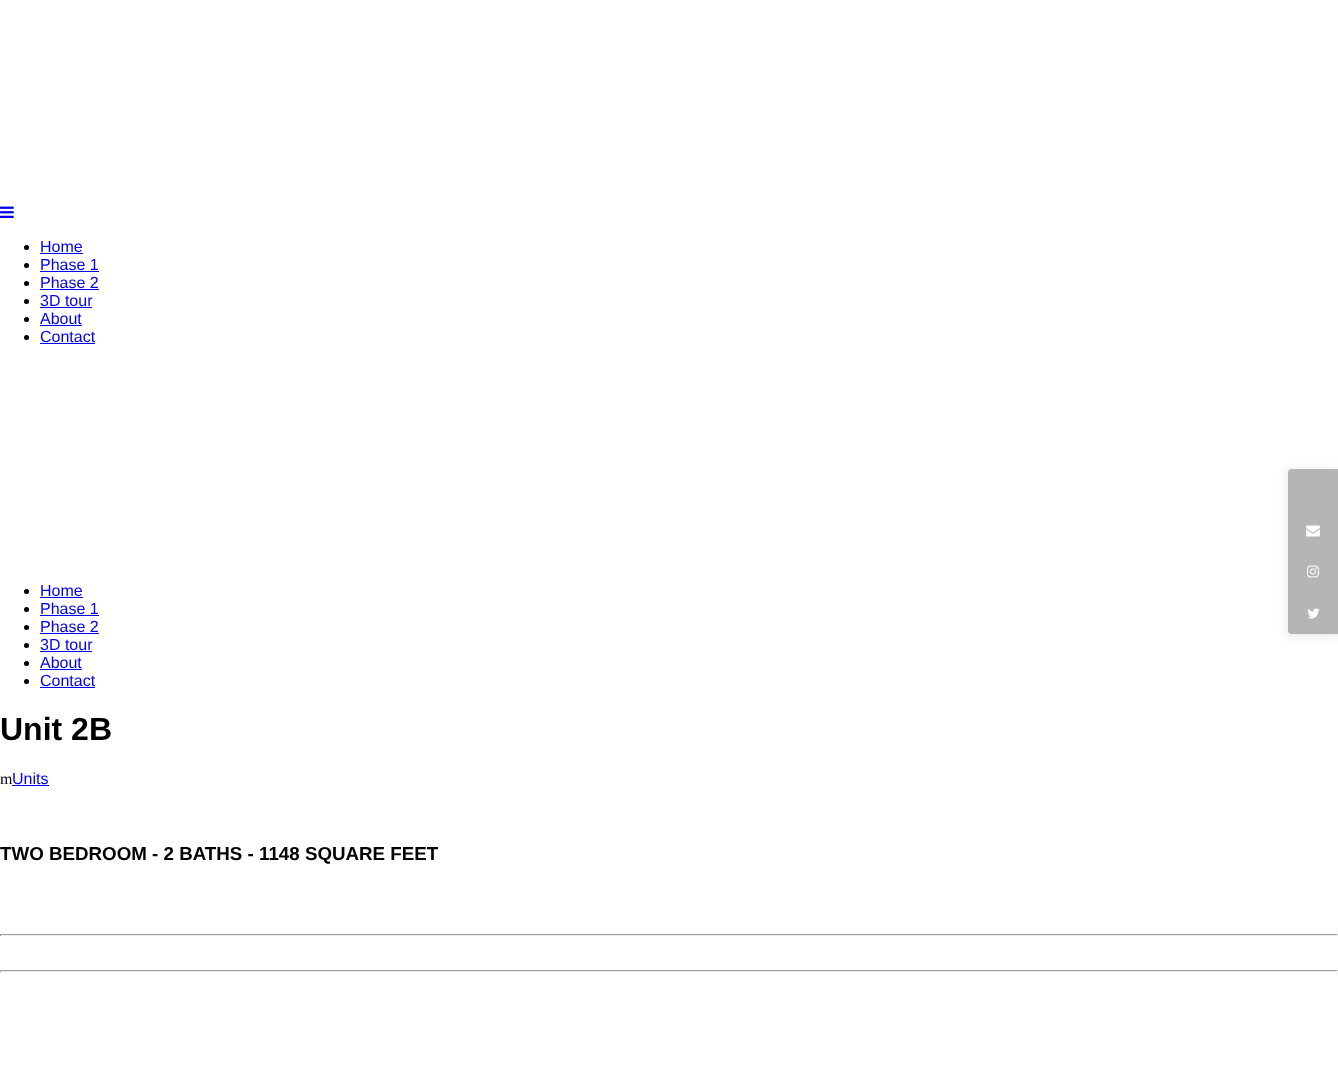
<!DOCTYPE html>
<meta charset="utf-8">
<style>body { margin: 0 } canvas { display: block }</style>
<canvas id="canvas" width="1338" height="1069"></canvas>
<img id="img1" src="img_01.png" hidden>
<img id="img2" src="img_02.png" hidden>
<img id="img3" src="img_03.png" hidden>
<img id="img4" src="img_04.png" hidden>
<script>
window.onload = function () {
	const canvas = document.getElementById("canvas");
	const ctx = canvas.getContext("2d");
	ctx.miterLimit = 4;
	ctx.fontKerning = "normal";
	function txt(s, x, y) {
		ctx.fillText(s, x, y);
	}
	function fill(x, y, w, h) {
		ctx.fillRect(x, y, w, h);
	}
	function img(id, x, y, w, h) {
		ctx.drawImage(document.getElementById(id), x, y, w, h);
	}

	ctx.fillStyle = "#FFFFFF";
	fill(0, 0, 1338, 1069);
	img("img1", 0, 206, 14, 12);
	ctx.fillStyle = "#000000";
	ctx.beginPath();
	ctx.arc(26.5, 247.5, 2.5, 0, Math.PI * 2);
	ctx.fill();
	ctx.fillStyle = "#0000EE";
	fill(40, 253, 43, 1);
	ctx.fillStyle = "#000000";
	ctx.beginPath();
	ctx.arc(26.5, 265.5, 2.5, 0, Math.PI * 2);
	ctx.fill();
	ctx.fillStyle = "#0000EE";
	fill(40, 271, 59, 1);
	ctx.fillStyle = "#000000";
	ctx.beginPath();
	ctx.arc(26.5, 283.5, 2.5, 0, Math.PI * 2);
	ctx.fill();
	ctx.fillStyle = "#0000EE";
	fill(40, 289, 59, 1);
	ctx.fillStyle = "#000000";
	ctx.beginPath();
	ctx.arc(26.5, 301.5, 2.5, 0, Math.PI * 2);
	ctx.fill();
	ctx.fillStyle = "#0000EE";
	fill(40, 307, 52, 1);
	ctx.fillStyle = "#000000";
	ctx.beginPath();
	ctx.arc(26.5, 319.5, 2.5, 0, Math.PI * 2);
	ctx.fill();
	ctx.fillStyle = "#0000EE";
	fill(40, 325, 42, 1);
	ctx.fillStyle = "#000000";
	ctx.beginPath();
	ctx.arc(26.5, 337.5, 2.5, 0, Math.PI * 2);
	ctx.fill();
	ctx.fillStyle = "#0000EE";
	fill(40, 343, 55, 1);
	ctx.fillStyle = "rgba(0, 0, 0, 0.07)";
	ctx.filter = "blur(5px)";
	ctx.beginPath();
	ctx.rect(1286, 469, 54, 169);
	ctx.fill();
	ctx.filter = "none";
	ctx.fillStyle = "#B5B5B5";
	ctx.beginPath();
	ctx.roundRect(1288, 469, 50, 41, [4, 0, 0, 0]);
	ctx.fill();
	fill(1288, 510, 50, 82);
	img("img2", 1306, 525, 14, 12);
	img("img3", 1307, 565, 12, 13);
	ctx.beginPath();
	ctx.roundRect(1288, 592, 50, 42, [0, 0, 0, 4]);
	ctx.fill();
	img("img4", 1307, 608, 13, 11);
	ctx.fillStyle = "#000000";
	ctx.beginPath();
	ctx.arc(26.5, 591.5, 2.5, 0, Math.PI * 2);
	ctx.fill();
	ctx.fillStyle = "#0000EE";
	fill(40, 597, 43, 1);
	ctx.fillStyle = "#000000";
	ctx.beginPath();
	ctx.arc(26.5, 609.5, 2.5, 0, Math.PI * 2);
	ctx.fill();
	ctx.fillStyle = "#0000EE";
	fill(40, 615, 59, 1);
	ctx.fillStyle = "#000000";
	ctx.beginPath();
	ctx.arc(26.5, 627.5, 2.5, 0, Math.PI * 2);
	ctx.fill();
	ctx.fillStyle = "#0000EE";
	fill(40, 633, 59, 1);
	ctx.fillStyle = "#000000";
	ctx.beginPath();
	ctx.arc(26.5, 645.5, 2.5, 0, Math.PI * 2);
	ctx.fill();
	ctx.fillStyle = "#0000EE";
	fill(40, 651, 52, 1);
	ctx.fillStyle = "#000000";
	ctx.beginPath();
	ctx.arc(26.5, 663.5, 2.5, 0, Math.PI * 2);
	ctx.fill();
	ctx.fillStyle = "#0000EE";
	fill(40, 669, 42, 1);
	ctx.fillStyle = "#000000";
	ctx.beginPath();
	ctx.arc(26.5, 681.5, 2.5, 0, Math.PI * 2);
	ctx.fill();
	ctx.fillStyle = "#0000EE";
	fill(40, 687, 55, 1);
	fill(12, 785, 37, 1);
	ctx.fillStyle = "#9F9F9F";
	fill(0, 934, 1338, 1);
	ctx.fillStyle = "#EEEEEE";
	fill(1337, 934, 1, 2);
	fill(0, 935, 1338, 1);
	ctx.fillStyle = "#9F9F9F";
	fill(0, 934, 1, 2);
	fill(0, 970, 1338, 1);
	ctx.fillStyle = "#EEEEEE";
	fill(1337, 970, 1, 2);
	fill(0, 971, 1338, 1);
	ctx.fillStyle = "#9F9F9F";
	fill(0, 970, 1, 2);
	ctx.font = "16px Liberation Sans";
	ctx.fillStyle = "#0000EE";
	txt("Home", 40, 252);
	txt("Phase 1", 40, 270);
	txt("Phase 2", 40, 288);
	txt("3D tour", 40, 306);
	txt("About", 40, 324);
	txt("Contact", 40, 342);
	txt("Home", 40, 596);
	txt("Phase 1", 40, 614);
	txt("Phase 2", 40, 632);
	txt("3D tour", 40, 650);
	txt("About", 40, 668);
	txt("Contact", 40, 686);
	ctx.font = "bold 32px Liberation Sans";
	ctx.fillStyle = "#000000";
	txt("Unit 2B", 0, 740);
	ctx.font = "16px Liberation Serif";
	txt("m", 0, 784);
	ctx.font = "16px Liberation Sans";
	ctx.fillStyle = "#0000EE";
	txt("Units", 12, 784);
	ctx.font = "bold 18.75px Liberation Sans";
	ctx.fillStyle = "#000000";
	txt("TWO BEDROOM - 2 BATHS - 1148 SQUARE FEET", 0, 860);
};
</script>
